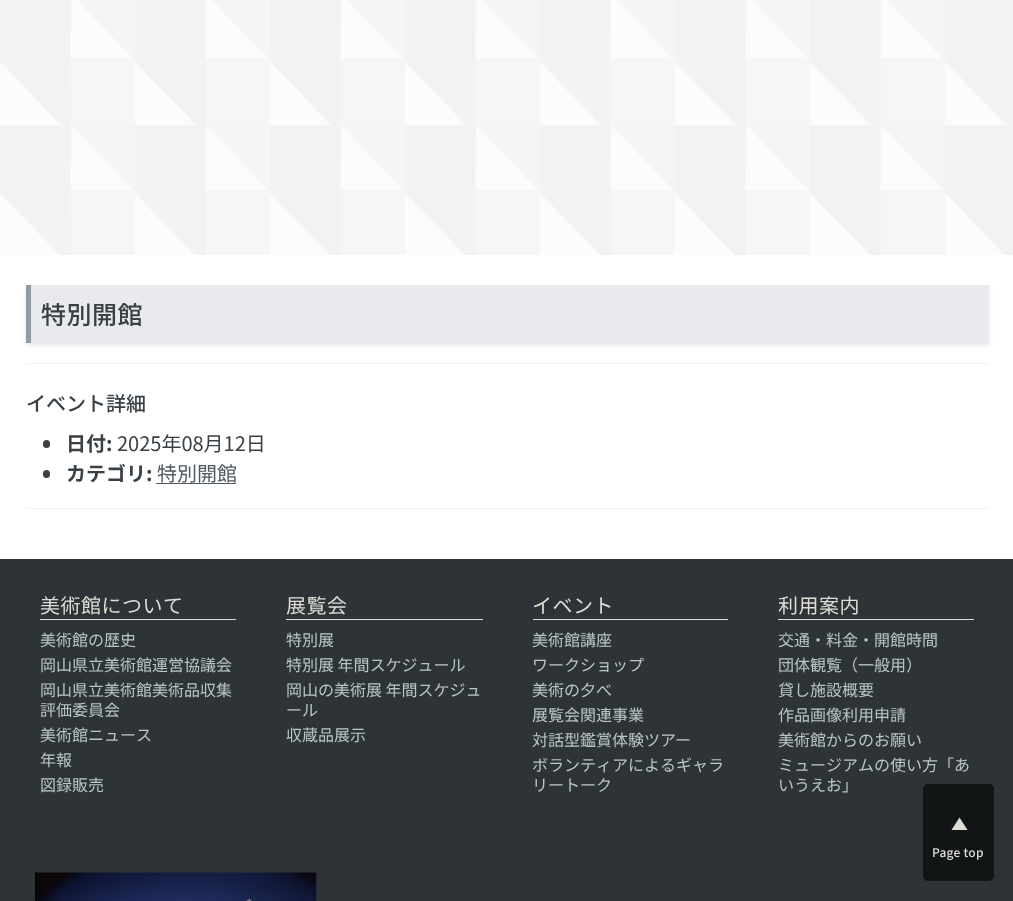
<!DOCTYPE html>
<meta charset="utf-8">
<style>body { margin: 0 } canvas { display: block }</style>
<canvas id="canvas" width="1013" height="901"></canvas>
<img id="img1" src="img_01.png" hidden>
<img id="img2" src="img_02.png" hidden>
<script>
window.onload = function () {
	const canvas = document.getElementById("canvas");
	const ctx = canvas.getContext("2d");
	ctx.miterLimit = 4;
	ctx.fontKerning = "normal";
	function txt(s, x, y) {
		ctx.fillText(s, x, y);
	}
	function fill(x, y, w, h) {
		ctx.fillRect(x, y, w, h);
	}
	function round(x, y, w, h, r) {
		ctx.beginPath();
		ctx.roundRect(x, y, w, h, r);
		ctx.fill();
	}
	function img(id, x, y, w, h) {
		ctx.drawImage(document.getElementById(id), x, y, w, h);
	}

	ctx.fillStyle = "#FFFFFF";
	fill(0, 0, 1013, 901);
	img("img1", 0, 0, 1013, 255);
	ctx.fillStyle = "rgba(46, 51, 56, 0.12)";
	ctx.filter = "blur(2px)";
	ctx.beginPath();
	ctx.rect(26, 288, 963, 57);
	ctx.fill();
	ctx.filter = "none";
	ctx.fillStyle = "#E9EAED";
	fill(31, 285, 958, 58);
	ctx.fillStyle = "#8F9CA3";
	fill(26, 285, 5, 58);
	ctx.fillStyle = "#F2F2F2";
	fill(26, 363, 963, 1);
	ctx.fillStyle = "#394046";
	round(43, 440, 7, 8, 3.5);
	round(43, 470, 7, 8, 3.5);
	ctx.fillStyle = "#505962";
	fill(156, 483, 80, 1);
	ctx.fillStyle = "#F2F2F2";
	fill(26, 508, 963, 1);
	ctx.fillStyle = "#2E3338";
	fill(0, 559, 1013, 342);
	ctx.fillStyle = "#DDDDD5";
	fill(40, 619, 196, 1);
	fill(286, 619, 197, 1);
	fill(533, 619, 195, 1);
	fill(778, 619, 196, 1);
	img("img2", 35, 872, 282, 29);
	ctx.fillStyle = "#121516";
	round(923, 784, 71, 97, 5);
	ctx.fillStyle = "#DDDDD5";
	ctx.beginPath();
	ctx.moveTo(959.5, 817.5);
	ctx.lineTo(951.5, 830);
	ctx.lineTo(967.5, 830);
	ctx.closePath();
	ctx.fill();
	ctx.letterSpacing = "0.5px";
	ctx.font = "500 25px Noto Sans JP";
	ctx.fillStyle = "#394046";
	txt("特別開館", 41, 324);
	ctx.letterSpacing = "0px";
	ctx.font = "500 20px Noto Sans JP";
	txt("イベント詳細", 26, 411);
	ctx.font = "bold 20px Noto Sans JP";
	txt("日付:", 66, 451);
	ctx.font = "20px Noto Sans JP";
	txt("2025年08月12日", 117, 451);
	ctx.font = "bold 20px Noto Sans JP";
	txt("カテゴリ:", 66, 481);
	ctx.font = "20px Noto Sans JP";
	ctx.fillStyle = "#505962";
	txt("特別開館", 157, 481);
	ctx.letterSpacing = "0.5px";
	ctx.fillStyle = "#DDDDD5";
	txt("美術館について", 40, 613);
	ctx.letterSpacing = "0px";
	ctx.font = "16px Noto Sans JP";
	ctx.fillStyle = "#B9C6C6";
	txt("美術館の歴史", 40, 646);
	txt("岡山県立美術館運営協議会", 40, 671);
	txt("岡山県立美術館美術品収集", 40, 696);
	txt("評価委員会", 40, 716);
	txt("美術館ニュース", 40, 741);
	txt("年報", 40, 766);
	txt("図録販売", 40, 791);
	ctx.letterSpacing = "0.5px";
	ctx.font = "20px Noto Sans JP";
	ctx.fillStyle = "#DDDDD5";
	txt("展覧会", 286, 613);
	ctx.letterSpacing = "0px";
	ctx.font = "16px Noto Sans JP";
	ctx.fillStyle = "#B9C6C6";
	txt("特別展", 286, 646);
	txt("特別展 年間スケジュール", 286, 671);
	txt("岡山の美術展 年間スケジュ", 286, 696);
	txt("ール", 286, 716);
	txt("収蔵品展示", 286, 741);
	ctx.letterSpacing = "0.5px";
	ctx.font = "20px Noto Sans JP";
	ctx.fillStyle = "#DDDDD5";
	txt("イベント", 532, 613);
	ctx.letterSpacing = "0px";
	ctx.font = "16px Noto Sans JP";
	ctx.fillStyle = "#B9C6C6";
	txt("美術館講座", 532, 646);
	txt("ワークショップ", 532, 671);
	txt("美術の夕べ", 532, 696);
	txt("展覧会関連事業", 532, 721);
	txt("対話型鑑賞体験ツアー", 532, 746);
	txt("ボランティアによるギャラ", 532, 771);
	txt("リートーク", 532, 791);
	ctx.letterSpacing = "0.5px";
	ctx.font = "20px Noto Sans JP";
	ctx.fillStyle = "#DDDDD5";
	txt("利用案内", 778, 613);
	ctx.letterSpacing = "0px";
	ctx.font = "16px Noto Sans JP";
	ctx.fillStyle = "#B9C6C6";
	txt("交通・料金・開館時間", 778, 646);
	txt("団体観覧（一般用）", 778, 671);
	txt("貸し施設概要", 778, 696);
	txt("作品画像利用申請", 778, 721);
	txt("美術館からのお願い", 778, 746);
	txt("ミュージアムの使い方「あ", 778, 771);
	txt("いうえお」", 778, 791);
	ctx.letterSpacing = "0.25px";
	ctx.font = "500 12px Noto Sans JP";
	ctx.fillStyle = "#DDDDD5";
	txt("Page top", 932, 857);
};
</script>
